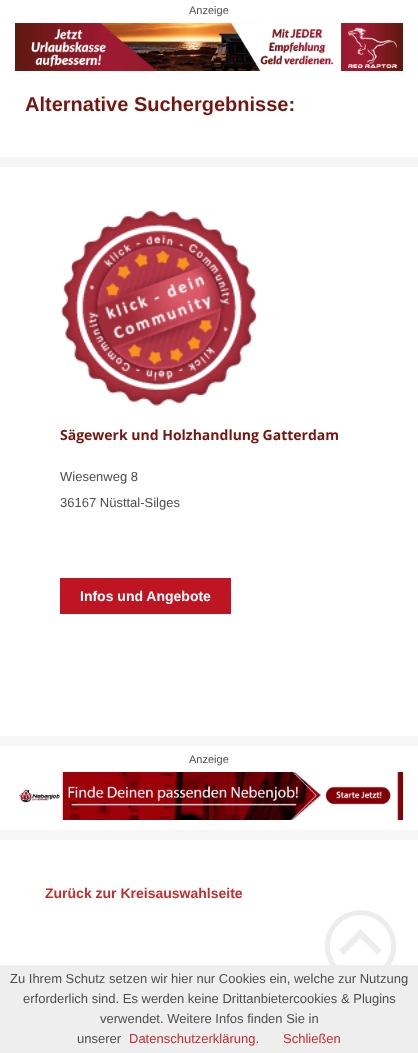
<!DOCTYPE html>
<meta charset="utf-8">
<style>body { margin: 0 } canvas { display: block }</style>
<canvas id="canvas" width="418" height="1053"></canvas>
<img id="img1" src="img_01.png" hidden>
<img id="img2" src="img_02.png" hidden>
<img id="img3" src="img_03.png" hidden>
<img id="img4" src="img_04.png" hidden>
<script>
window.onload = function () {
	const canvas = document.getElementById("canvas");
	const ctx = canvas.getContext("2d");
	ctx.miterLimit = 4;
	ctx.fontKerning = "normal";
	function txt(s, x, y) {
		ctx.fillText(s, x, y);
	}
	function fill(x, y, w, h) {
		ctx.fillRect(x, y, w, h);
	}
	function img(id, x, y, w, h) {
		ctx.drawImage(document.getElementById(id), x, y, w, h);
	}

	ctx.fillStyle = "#FFFFFF";
	fill(0, 0, 418, 1053);
	img("img1", 15, 23, 388, 48);
	ctx.fillStyle = "#F6F6F6";
	fill(0, 157, 418, 10);
	img("img2", 61, 210, 196, 196);
	ctx.fillStyle = "#BF1522";
	fill(60, 578, 171, 36);
	ctx.fillStyle = "#F6F6F6";
	fill(0, 736, 418, 10);
	img("img3", 18, 772, 385, 48);
	fill(0, 830, 418, 10);
	img("img4", 325, 910, 72, 55);
	ctx.fillStyle = "#EEEEEE";
	fill(0, 965, 418, 88);
	ctx.font = "11px Liberation Sans";
	ctx.fillStyle = "#4E4E4E";
	txt("Anzeige", 189, 14);
	ctx.font = "bold 20px Liberation Sans";
	ctx.fillStyle = "#761610";
	txt("Alternative Suchergebnisse:", 25, 111);
	ctx.font = "bold 14px Open Sans";
	txt("Sägewerk und Holzhandlung Gatterdam", 60, 440);
	ctx.font = "13px Liberation Sans";
	ctx.fillStyle = "#4E4E4E";
	txt("Wiesenweg 8", 60, 481);
	txt("36167 Nüsttal-Silges", 60, 507);
	ctx.font = "bold 14px Liberation Sans";
	ctx.fillStyle = "#FFFFFF";
	txt("Infos und Angebote", 80, 601);
	ctx.font = "11px Liberation Sans";
	ctx.fillStyle = "#4E4E4E";
	txt("Anzeige", 189, 763);
	ctx.font = "bold 14px Liberation Sans";
	ctx.fillStyle = "#C52D2F";
	txt("Zurück zur Kreisauswahlseite", 45, 898);
	ctx.font = "13px Liberation Sans";
	ctx.fillStyle = "#4E4E4E";
	txt("Zu Ihrem Schutz setzen wir hier nur Cookies ein, welche zur Nutzung", 10, 983);
	txt("erforderlich sind. Es werden keine Drittanbietercookies & Plugins", 23, 1003);
	txt("verwendet. Weitere Infos finden Sie in", 100, 1023);
	txt("unserer", 77, 1043);
	ctx.fillStyle = "#C52D2F";
	txt("Datenschutzerklärung.", 129, 1043);
	txt("Schließen", 283, 1043);
};
</script>
